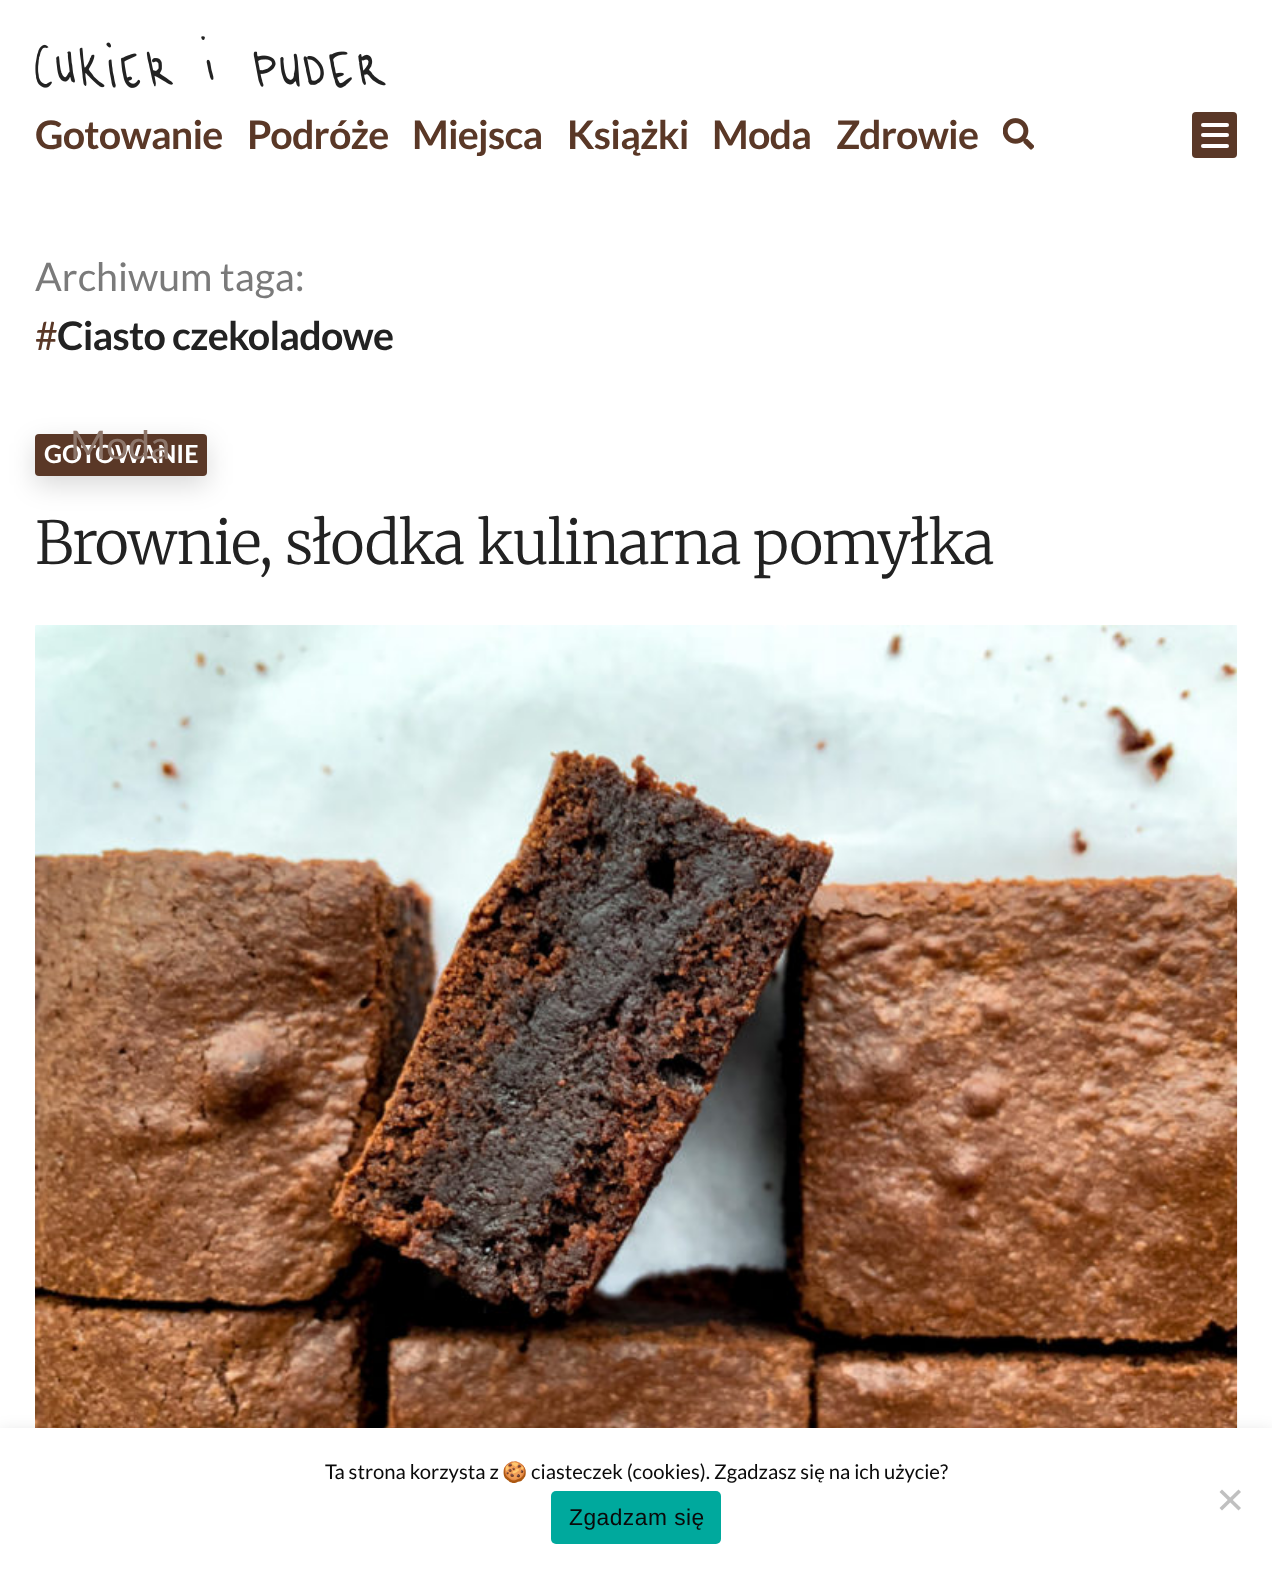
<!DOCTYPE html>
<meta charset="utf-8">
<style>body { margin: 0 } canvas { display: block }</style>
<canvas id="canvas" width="1272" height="1569"></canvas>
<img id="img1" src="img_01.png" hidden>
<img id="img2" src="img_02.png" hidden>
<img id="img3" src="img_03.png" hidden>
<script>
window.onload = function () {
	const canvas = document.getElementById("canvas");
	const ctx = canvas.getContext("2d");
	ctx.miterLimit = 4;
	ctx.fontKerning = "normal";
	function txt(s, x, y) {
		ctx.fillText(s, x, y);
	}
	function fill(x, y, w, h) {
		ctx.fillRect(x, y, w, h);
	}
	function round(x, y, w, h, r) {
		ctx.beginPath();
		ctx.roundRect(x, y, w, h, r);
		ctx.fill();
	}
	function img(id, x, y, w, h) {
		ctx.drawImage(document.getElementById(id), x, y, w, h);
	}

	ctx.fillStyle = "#FFFFFF";
	fill(0, 0, 1272, 1569);
	img("img1", 35, 36, 351, 52);
	img("img2", 1003, 118, 31, 32);
	ctx.fillStyle = "#5A3827";
	round(1192, 112, 45, 46, 4);
	ctx.fillStyle = "#FFFFFF";
	round(1201, 123, 28, 4, 2);
	round(1201, 133, 28, 4, 2);
	round(1201, 144, 28, 4, 2);
	ctx.fillStyle = "rgba(0, 0, 0, 0.15)";
	ctx.filter = "blur(13px)";
	ctx.beginPath();
	ctx.roundRect(35, 443, 172, 42, 4);
	ctx.fill();
	ctx.filter = "none";
	ctx.fillStyle = "#5A3827";
	round(35, 434, 172, 42, 4);
	img("img3", 35, 625, 1203, 803);
	ctx.fillStyle = "rgba(0, 0, 0, 0.15)";
	ctx.filter = "blur(9px)";
	ctx.beginPath();
	ctx.rect(0, 1433, 1272, 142);
	ctx.fill();
	ctx.filter = "none";
	ctx.fillStyle = "#FFFFFF";
	fill(0, 1428, 1272, 141);
	ctx.fillStyle = "#C0C0C0";
	ctx.beginPath();
	ctx.moveTo(1238.5, 1489.5);
	ctx.lineTo(1241, 1492);
	ctx.lineTo(1222, 1510.5);
	ctx.lineTo(1219.5, 1508);
	ctx.closePath();
	ctx.fill();
	ctx.beginPath();
	ctx.moveTo(1219.5, 1492);
	ctx.lineTo(1222, 1489.5);
	ctx.lineTo(1241, 1508);
	ctx.lineTo(1238.5, 1510.5);
	ctx.closePath();
	ctx.fill();
	ctx.fillStyle = "#00A99D";
	round(551, 1491, 170, 53, 5);
	ctx.letterSpacing = "-0.75px";
	ctx.font = "bold 39.4px Lato";
	ctx.fillStyle = "#5A3827";
	txt("Gotowanie", 35, 149);
	txt("Podróże", 247, 149);
	txt("Miejsca", 412, 149);
	txt("Książki", 567, 149);
	txt("Moda", 712, 149);
	txt("Zdrowie", 836, 149);
	ctx.letterSpacing = "0px";
	ctx.font = "39.4px Lato";
	ctx.fillStyle = "#7A7A7A";
	txt("Archiwum taga:", 35, 291);
	ctx.letterSpacing = "-0.75px";
	ctx.fillStyle = "#5A3827";
	txt("#", 35, 350);
	ctx.font = "bold 39.4px Lato";
	ctx.fillStyle = "#222222";
	txt("Ciasto czekoladowe", 57, 350);
	ctx.letterSpacing = "0px";
	ctx.font = "bold 25px Lato";
	ctx.fillStyle = "#FFFFFF";
	txt("GOTOWANIE", 44, 463);
	ctx.letterSpacing = "-1.2px";
	ctx.wordSpacing = "0.5px";
	ctx.font = "300 59px Merriweather";
	ctx.fillStyle = "#222222";
	txt("Brownie, słodka kulinarna pomyłka", 35, 564);
	ctx.letterSpacing = "0px";
	ctx.wordSpacing = "0px";
	ctx.font = "39.4px Lato";
	ctx.fillStyle = "#8D766A";
	txt("Moda", 70, 459);
	ctx.font = "20.25px Lato";
	ctx.fillStyle = "#0A0A0A";
	txt("Ta strona korzysta z", 325, 1479);
	ctx.font = "20.25px Noto Color Emoji";
	txt("🍪", 502, 1479);
	ctx.font = "20.25px Lato";
	txt("ciasteczek (cookies). Zgadzasz się na ich użycie?", 531, 1479);
	ctx.letterSpacing = "0.5px";
	ctx.font = "22.75px Liberation Sans";
	txt("Zgadzam się", 569, 1525);
};
</script>
